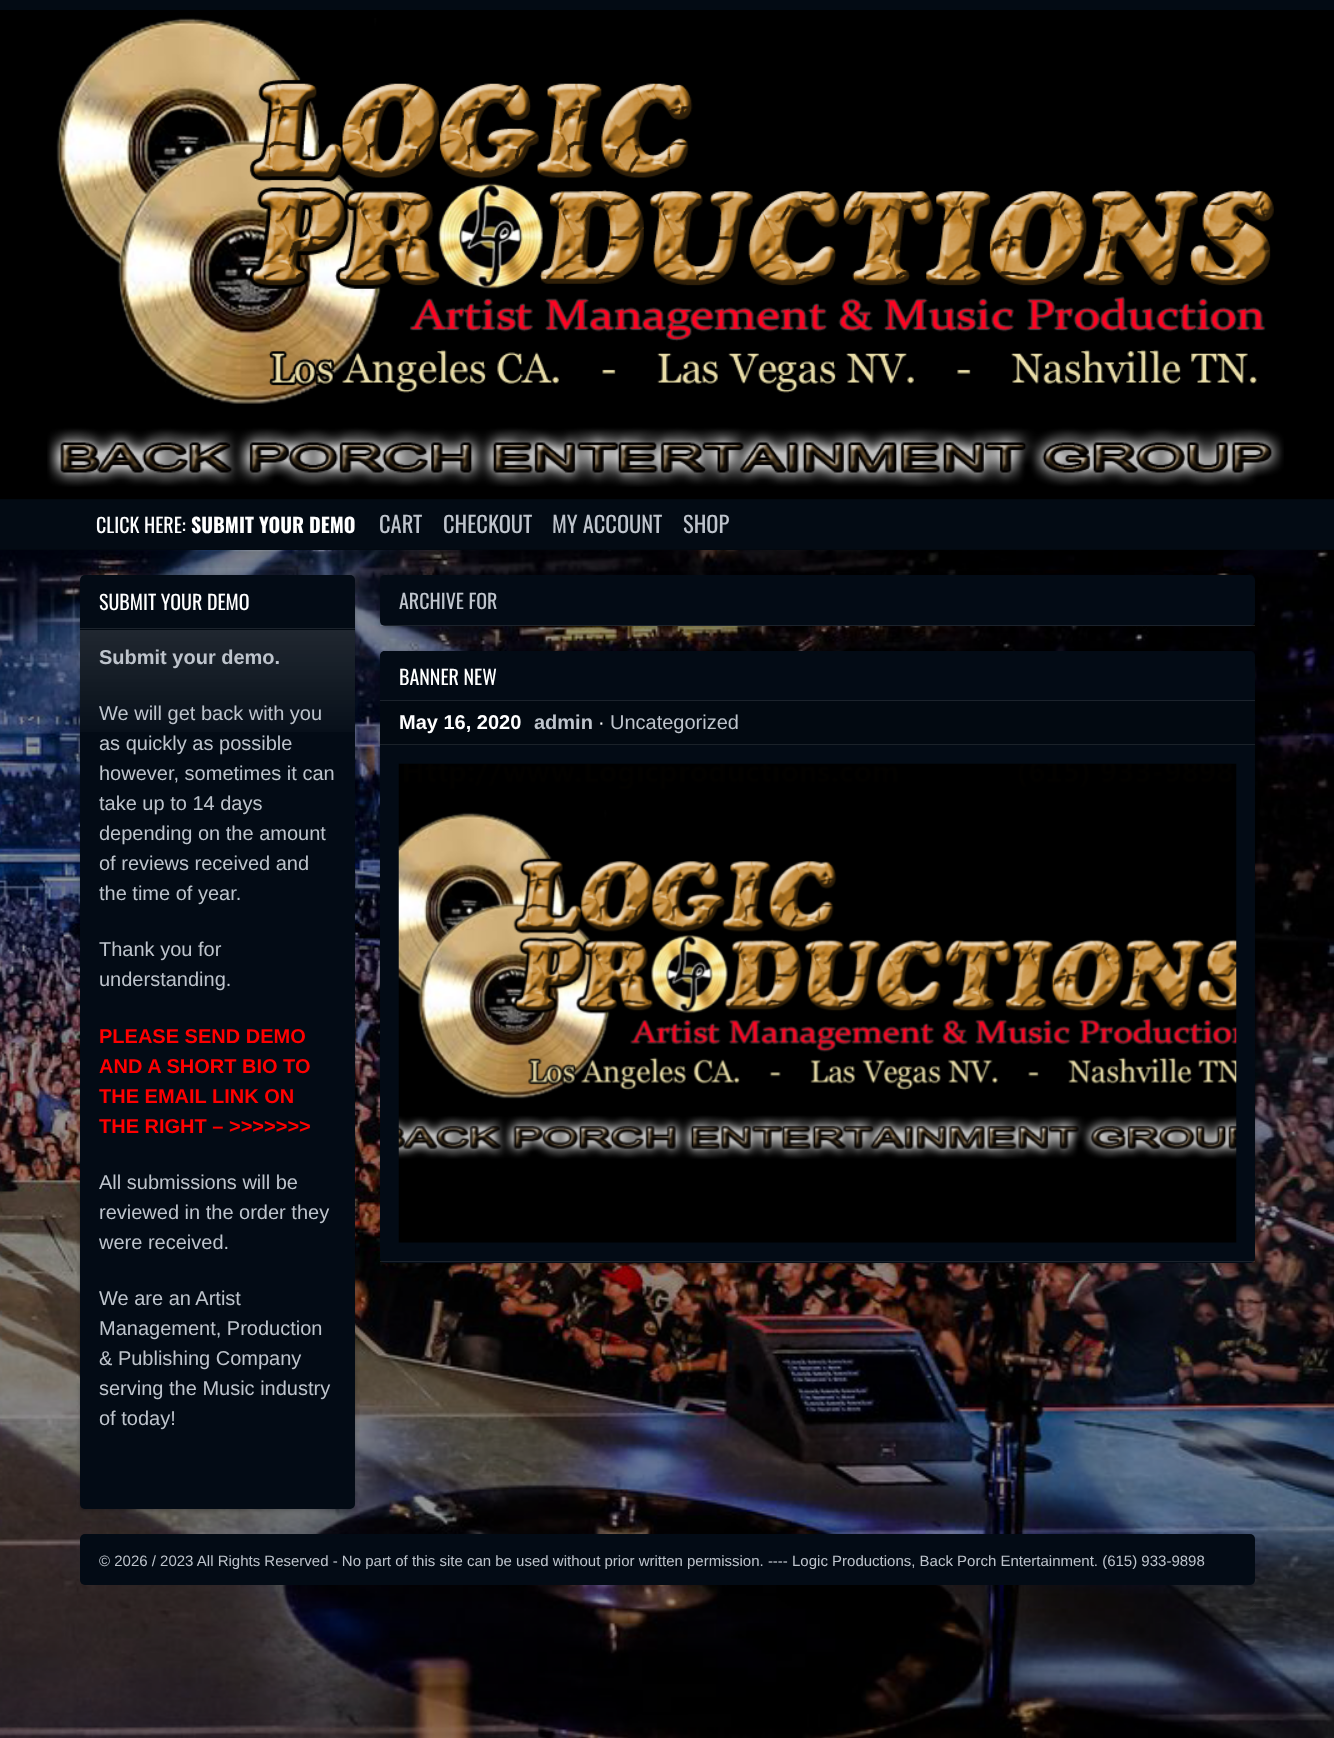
<!DOCTYPE html>
<meta charset="utf-8">
<style>body { margin: 0 } canvas { display: block }</style>
<canvas id="canvas" width="1334" height="1738"></canvas>
<img id="img1" src="img_01.png" hidden>
<img id="img2" src="img_02.png" hidden>
<img id="img3" src="img_03.png" hidden>
<img id="img4" src="img_04.png" hidden>
<img id="img5" src="img_05.png" hidden>
<img id="img6" src="img_06.png" hidden>
<script>
window.onload = function () {
	const canvas = document.getElementById("canvas");
	const ctx = canvas.getContext("2d");
	ctx.miterLimit = 4;
	ctx.fontKerning = "normal";
	function txt(s, x, y) {
		ctx.fillText(s, x, y);
	}
	function fill(x, y, w, h) {
		ctx.fillRect(x, y, w, h);
	}
	function round(x, y, w, h, r) {
		ctx.beginPath();
		ctx.roundRect(x, y, w, h, r);
		ctx.fill();
	}
	function img(id, x, y, w, h) {
		ctx.drawImage(document.getElementById(id), x, y, w, h);
	}

	ctx.fillStyle = "#000000";
	fill(0, 0, 1334, 1738);
	img("img1", 0, 550, 1334, 1188);
	img("img2", 100, 551, 1226, 17);
	ctx.fillStyle = "#030B14";
	fill(0, 0, 1334, 10);
	img("img3", 47, 18, 1237, 469);
	fill(0, 500, 1334, 49);
	ctx.fillStyle = "#020910";
	fill(0, 499, 1334, 1);
	fill(0, 549, 1334, 1);
	ctx.fillStyle = "rgba(0, 0, 0, 0.25)";
	ctx.filter = "blur(2px)";
	ctx.beginPath();
	ctx.roundRect(80, 576, 275, 934, 5);
	ctx.fill();
	ctx.filter = "none";
	ctx.fillStyle = "#030B15";
	round(80, 575, 275, 934, 5);
	ctx.fillStyle = "#1C232C";
	fill(80, 628, 275, 1);
	img("img4", 80, 630, 275, 102);
	ctx.fillStyle = "#020911";
	fill(80, 629, 275, 1);
	ctx.fillStyle = "rgba(0, 0, 0, 0.25)";
	ctx.filter = "blur(2px)";
	ctx.beginPath();
	ctx.roundRect(380, 576, 875, 52, 5);
	ctx.fill();
	ctx.filter = "none";
	ctx.fillStyle = "#030B15";
	round(380, 575, 875, 51, 5);
	ctx.fillStyle = "rgba(255, 255, 255, 0.1)";
	fill(380, 625, 875, 1);
	ctx.fillStyle = "rgba(0, 0, 0, 0.25)";
	ctx.filter = "blur(2px)";
	ctx.beginPath();
	ctx.roundRect(380, 653, 875, 611, 5);
	ctx.fill();
	ctx.filter = "none";
	ctx.fillStyle = "#030B15";
	round(380, 651, 875, 612, 5);
	ctx.beginPath();
	ctx.roundRect(380, 651, 875, 50, [5, 5, 0, 0]);
	ctx.fill();
	ctx.fillStyle = "#1C232C";
	fill(380, 700, 875, 1);
	ctx.fillStyle = "#020911";
	fill(380, 701, 875, 43);
	ctx.fillStyle = "#1B2229";
	fill(380, 744, 875, 1);
	ctx.fillStyle = "rgba(255, 255, 255, 0.1)";
	fill(380, 1261, 875, 1);
	img("img5", 398, 763, 839, 480);
	ctx.fillStyle = "#030B15";
	round(80, 1534, 1175, 51, 5);
	img("img6", 1249, 1604, 6, 6);
	ctx.font = "20px Oswald";
	ctx.fillStyle = "#FFFFFF";
	txt("CLICK HERE:", 96, 533);
	ctx.font = "bold 20px Oswald";
	txt("SUBMIT YOUR DEMO", 191, 533);
	ctx.font = "22.5px Oswald";
	ctx.fillStyle = "#BEC4CC";
	txt("CART", 379, 533);
	txt("CHECKOUT", 443, 533);
	txt("MY ACCOUNT", 552, 533);
	txt("SHOP", 683, 533);
	ctx.font = "20px Oswald";
	ctx.fillStyle = "#FFFFFF";
	txt("SUBMIT YOUR DEMO", 99, 610);
	ctx.font = "bold 20px Liberation Sans";
	ctx.fillStyle = "#BEC4CC";
	txt("Submit your demo.", 99, 664);
	ctx.font = "20px Liberation Sans";
	txt("We will get back with you", 99, 720);
	txt("as quickly as possible", 99, 750);
	txt("however, sometimes it can", 99, 780);
	txt("take up to 14 days", 99, 810);
	txt("depending on the amount", 99, 840);
	txt("of reviews received and", 99, 870);
	txt("the time of year.", 99, 900);
	txt("Thank you for", 99, 956);
	txt("understanding.", 99, 986);
	ctx.font = "bold 20px Liberation Sans";
	ctx.fillStyle = "#FF0000";
	txt("PLEASE SEND DEMO", 99, 1043);
	txt("AND A SHORT BIO TO", 99, 1073);
	txt("THE EMAIL LINK ON", 99, 1103);
	txt("THE RIGHT – >>>>>>>", 99, 1133);
	ctx.font = "20px Liberation Sans";
	ctx.fillStyle = "#BEC4CC";
	txt("All submissions will be", 99, 1189);
	txt("reviewed in the order they", 99, 1219);
	txt("were received.", 99, 1249);
	txt("We are an Artist", 99, 1305);
	txt("Management, Production", 99, 1335);
	txt("& Publishing Company", 99, 1365);
	txt("serving the Music industry", 99, 1395);
	txt("of today!", 99, 1425);
	ctx.font = "20px Oswald";
	txt("ARCHIVE FOR", 399, 609);
	ctx.fillStyle = "#FFFFFF";
	txt("BANNER NEW", 399, 685);
	ctx.font = "bold 20px Liberation Sans";
	txt("May 16, 2020", 399, 729);
	ctx.fillStyle = "#BEC4CC";
	txt("admin", 534, 729);
	ctx.font = "20px Liberation Sans";
	ctx.fillStyle = "#FFFFFF";
	txt("·", 598, 729);
	ctx.fillStyle = "#BEC4CC";
	txt("Uncategorized", 610, 729);
	ctx.font = "15px Liberation Sans";
	txt("© 2026 / 2023 All Rights Reserved - No part of this site can be used without prior written permission. ---- Logic Productions, Back Porch Entertainment. (615) 933-9898", 99, 1566);
};
</script>
